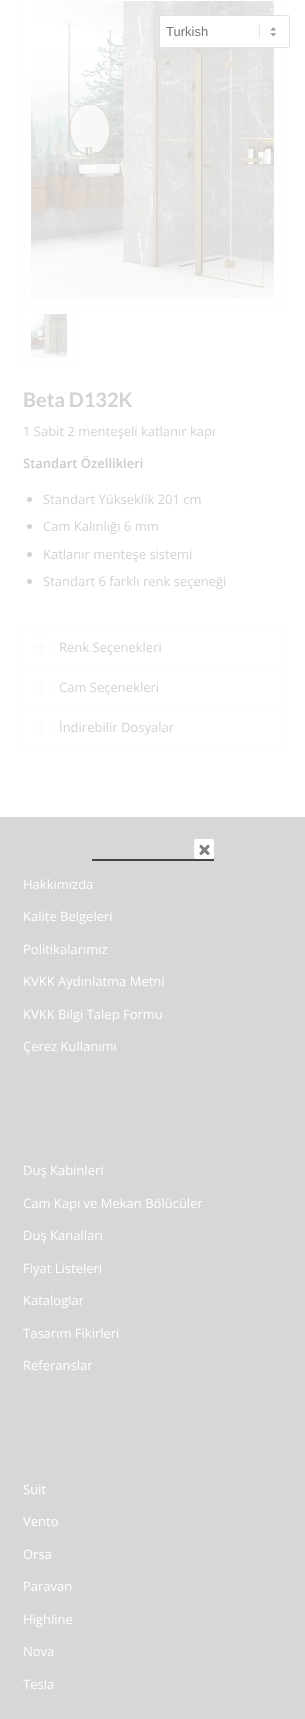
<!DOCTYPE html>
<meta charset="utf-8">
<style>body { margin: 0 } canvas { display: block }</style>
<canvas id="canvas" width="305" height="1719"></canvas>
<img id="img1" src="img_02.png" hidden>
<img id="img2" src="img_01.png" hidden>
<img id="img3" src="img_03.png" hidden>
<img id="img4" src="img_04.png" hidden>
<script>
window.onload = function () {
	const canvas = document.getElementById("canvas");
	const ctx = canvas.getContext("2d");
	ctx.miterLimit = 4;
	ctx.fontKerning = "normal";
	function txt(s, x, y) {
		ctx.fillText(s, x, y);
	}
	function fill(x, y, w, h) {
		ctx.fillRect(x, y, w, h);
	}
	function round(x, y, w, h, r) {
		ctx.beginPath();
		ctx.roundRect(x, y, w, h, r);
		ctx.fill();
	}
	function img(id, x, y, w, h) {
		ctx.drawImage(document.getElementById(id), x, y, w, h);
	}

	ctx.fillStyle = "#FFFFFF";
	fill(0, 0, 305, 1719);
	ctx.strokeStyle = "#FBFBFB";
	ctx.strokeRect(23.5, -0.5, 258, 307);
	img("img1", 31, 1, 243, 298);
	round(159, 15, 131, 33, 2);
	img("img2", 259, 25, 18, 13);
	ctx.beginPath();
	ctx.roundRect(159.5, 15.5, 130, 32, 1.5);
	ctx.strokeStyle = "#E1E1E1";
	ctx.stroke();
	ctx.strokeStyle = "#FBFBFB";
	ctx.strokeRect(23.5, 306.5, 51, 59);
	img("img3", 31, 314, 36, 44);
	ctx.fillStyle = "#D3D3D3";
	ctx.beginPath();
	ctx.arc(29.5, 499.5, 2.5, 0, Math.PI * 2);
	ctx.fill();
	ctx.beginPath();
	ctx.arc(29.5, 526.5, 2.5, 0, Math.PI * 2);
	ctx.fill();
	ctx.beginPath();
	ctx.arc(29.5, 554.5, 2.5, 0, Math.PI * 2);
	ctx.fill();
	ctx.beginPath();
	ctx.arc(29.5, 581.5, 2.5, 0, Math.PI * 2);
	ctx.fill();
	ctx.beginPath();
	ctx.roundRect(23.5, 627.5, 258, 40, [1.5, 1.5, 0, 0]);
	ctx.stroke();
	ctx.strokeRect(34.5, 639.5, 14, 14);
	ctx.fillStyle = "#FBFBFB";
	fill(40, 641, 3, 11);
	fill(36, 645, 11, 3);
	ctx.fillStyle = "#FFFFFF";
	ctx.beginPath();
	ctx.roundRect(23.5, 667.5, 258, 40, [1.5, 1.5, 0, 0]);
	ctx.fill();
	ctx.stroke();
	ctx.strokeRect(34.5, 680.5, 14, 14);
	ctx.fillStyle = "#FBFBFB";
	fill(40, 682, 3, 11);
	fill(36, 686, 11, 3);
	ctx.fillStyle = "#FFFFFF";
	ctx.beginPath();
	ctx.roundRect(23.5, 707.5, 258, 41, [1.5, 1.5, 0, 0]);
	ctx.fill();
	ctx.stroke();
	ctx.strokeRect(34.5, 720.5, 14, 14);
	ctx.fillStyle = "#FBFBFB";
	fill(40, 722, 3, 11);
	fill(36, 726, 11, 3);
	ctx.fillStyle = "#D7D7D8";
	fill(0, 817, 305, 902);
	img("img4", 194, 839, 20, 20);
	ctx.fillStyle = "#444444";
	fill(92, 859, 122, 2);
	ctx.font = "13px Liberation Sans";
	ctx.fillStyle = "#777777";
	txt("Turkish", 166, 36);
	ctx.font = "bold 20px Lato";
	ctx.fillStyle = "#D3D3D3";
	txt("Beta D132K", 23, 407);
	ctx.font = "13px Open Sans";
	txt("1 Sabit 2 menteşeli katlanır kapı", 23, 436);
	ctx.font = "600 13px Open Sans";
	ctx.fillStyle = "#CCCCCC";
	txt("Standart Özellikleri", 23, 468);
	ctx.font = "13px Open Sans";
	ctx.fillStyle = "#D3D3D3";
	txt("Standart Yükseklik 201 cm", 43, 504);
	txt("Cam Kalınlığı 6 mm", 43, 531);
	txt("Katlanır menteşe sistemi", 43, 559);
	txt("Standart 6 farklı renk seçeneği", 43, 586);
	txt("Renk Seçenekleri", 59, 652);
	txt("Cam Seçenekleri", 59, 692);
	txt("İndirebilir Dosyalar", 59, 732);
	ctx.fillStyle = "#FFFFFF";
	txt("Hakkımızda", 23, 889);
	txt("Kalite Belgeleri", 23, 921);
	txt("Politikalarımız", 23, 954);
	txt("KVKK Aydınlatma Metni", 23, 986);
	txt("KVKK Bilgi Talep Formu", 23, 1019);
	txt("Çerez Kullanımı", 23, 1051);
	txt("Duş Kabinleri", 23, 1175);
	txt("Cam Kapı ve Mekan Bölücüler", 23, 1208);
	txt("Duş Kanalları", 23, 1240);
	txt("Fiyat Listeleri", 23, 1273);
	txt("Kataloglar", 23, 1305);
	txt("Tasarım Fikirleri", 23, 1338);
	txt("Referanslar", 23, 1370);
	txt("Suit", 23, 1494);
	txt("Vento", 23, 1526);
	txt("Orsa", 23, 1559);
	txt("Paravan", 23, 1591);
	txt("Highline", 23, 1624);
	txt("Nova", 23, 1656);
	txt("Tesla", 23, 1689);
};
</script>
